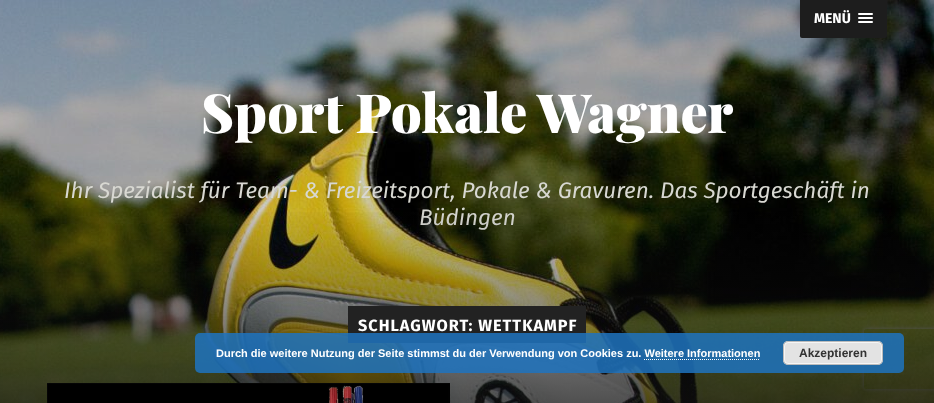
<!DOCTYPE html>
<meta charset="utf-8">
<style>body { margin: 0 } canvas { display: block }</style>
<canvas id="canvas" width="934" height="403"></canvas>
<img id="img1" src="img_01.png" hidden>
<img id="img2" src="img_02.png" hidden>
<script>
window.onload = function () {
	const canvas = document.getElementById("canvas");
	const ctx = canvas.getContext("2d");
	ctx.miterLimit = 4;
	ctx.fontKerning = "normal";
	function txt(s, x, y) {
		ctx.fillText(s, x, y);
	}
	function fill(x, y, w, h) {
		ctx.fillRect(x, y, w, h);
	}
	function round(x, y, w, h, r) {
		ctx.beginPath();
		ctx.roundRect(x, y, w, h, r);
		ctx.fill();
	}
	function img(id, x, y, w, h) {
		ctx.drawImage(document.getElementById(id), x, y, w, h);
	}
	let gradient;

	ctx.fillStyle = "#FFFFFF";
	fill(0, 0, 934, 403);
	img("img1", 0, 0, 934, 403);
	ctx.fillStyle = "#1D1D1D";
	ctx.beginPath();
	ctx.roundRect(800, 0, 87, 38, [0, 0, 2, 2]);
	ctx.fill();
	ctx.fillStyle = "#FFFFFF";
	round(858, 13, 15, 2, 1);
	round(858, 17, 15, 2, 1);
	round(858, 21, 15, 2, 1);
	ctx.save();
	ctx.beginPath();
	ctx.moveTo(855, 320);
	ctx.lineTo(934, 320);
	ctx.lineTo(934, 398);
	ctx.lineTo(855, 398);
	ctx.closePath();
	ctx.moveTo(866, 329);
	ctx.lineTo(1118, 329);
	ctx.bezierCurveTo(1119, 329, 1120, 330, 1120, 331);
	ctx.lineTo(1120, 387);
	ctx.bezierCurveTo(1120, 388, 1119, 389, 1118, 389);
	ctx.lineTo(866, 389);
	ctx.bezierCurveTo(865, 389, 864, 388, 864, 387);
	ctx.lineTo(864, 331);
	ctx.bezierCurveTo(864, 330, 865, 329, 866, 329);
	ctx.closePath();
	ctx.clip("evenodd");
	ctx.fillStyle = "#808080";
	ctx.filter = "blur(2.5px)";
	ctx.beginPath();
	ctx.roundRect(864, 329, 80, 60, 2);
	ctx.fill();
	ctx.filter = "none";
	ctx.restore();
	ctx.font = "bold 14px Fira Sans";
	txt("MENÜ", 814, 23);
	ctx.font = "900 54px Playfair Display";
	txt("Sport Pokale Wagner", 201, 133);
	ctx.font = "italic 22.5px Fira Sans";
	ctx.fillStyle = "#D8D8D2";
	txt("Ihr Spezialist für Team- & Freizeitsport, Pokale & Gravuren. Das Sportgeschäft in", 64, 198);
	txt("Büdingen", 419, 225);
	gradient = ctx.createLinearGradient(467, 206, 467, 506);
	gradient.addColorStop(0, "rgba(17, 17, 17, 0)");
	gradient.addColorStop(1, "#111111");
	ctx.fillStyle = gradient;
	fill(0, 212, 934, 191);
	ctx.fillStyle = "#222222";
	fill(348, 306, 238, 37);
	ctx.letterSpacing = "1px";
	ctx.font = "bold 16.25px Fira Sans";
	ctx.fillStyle = "#FFFFFF";
	txt("SCHLAGWORT: WETTKAMPF", 358, 331);
	img("img2", 47, 383, 403, 20);
	ctx.fillStyle = "rgba(30, 115, 190, 0.85)";
	round(195, 333, 709, 40, 5);
	ctx.letterSpacing = "0px";
	ctx.font = "bold 11px Liberation Sans";
	ctx.fillStyle = "#FFFFFF";
	txt("Durch die weitere Nutzung der Seite stimmst du der Verwendung von Cookies zu. Weitere Informationen", 216, 357);
	ctx.fillStyle = "#E3E3E3";
	round(783, 341, 100, 24, 5);
	ctx.beginPath();
	ctx.roundRect(784.5, 342.5, 97, 21, 3.5);
	ctx.strokeStyle = "#F6F6F6";
	ctx.stroke();
	ctx.beginPath();
	ctx.roundRect(783.5, 341.5, 99, 23, 4.5);
	ctx.strokeStyle = "#BBBBBB";
	ctx.stroke();
	ctx.font = "bold 12px Liberation Sans";
	ctx.fillStyle = "#333333";
	txt("Akzeptieren", 799, 357);
	ctx.beginPath();
	ctx.moveTo(644, 359.5);
	ctx.lineTo(760, 359.5);
	ctx.strokeStyle = "#FFFFFF";
	ctx.setLineDash([1, 1]);
	ctx.stroke();
};
</script>
